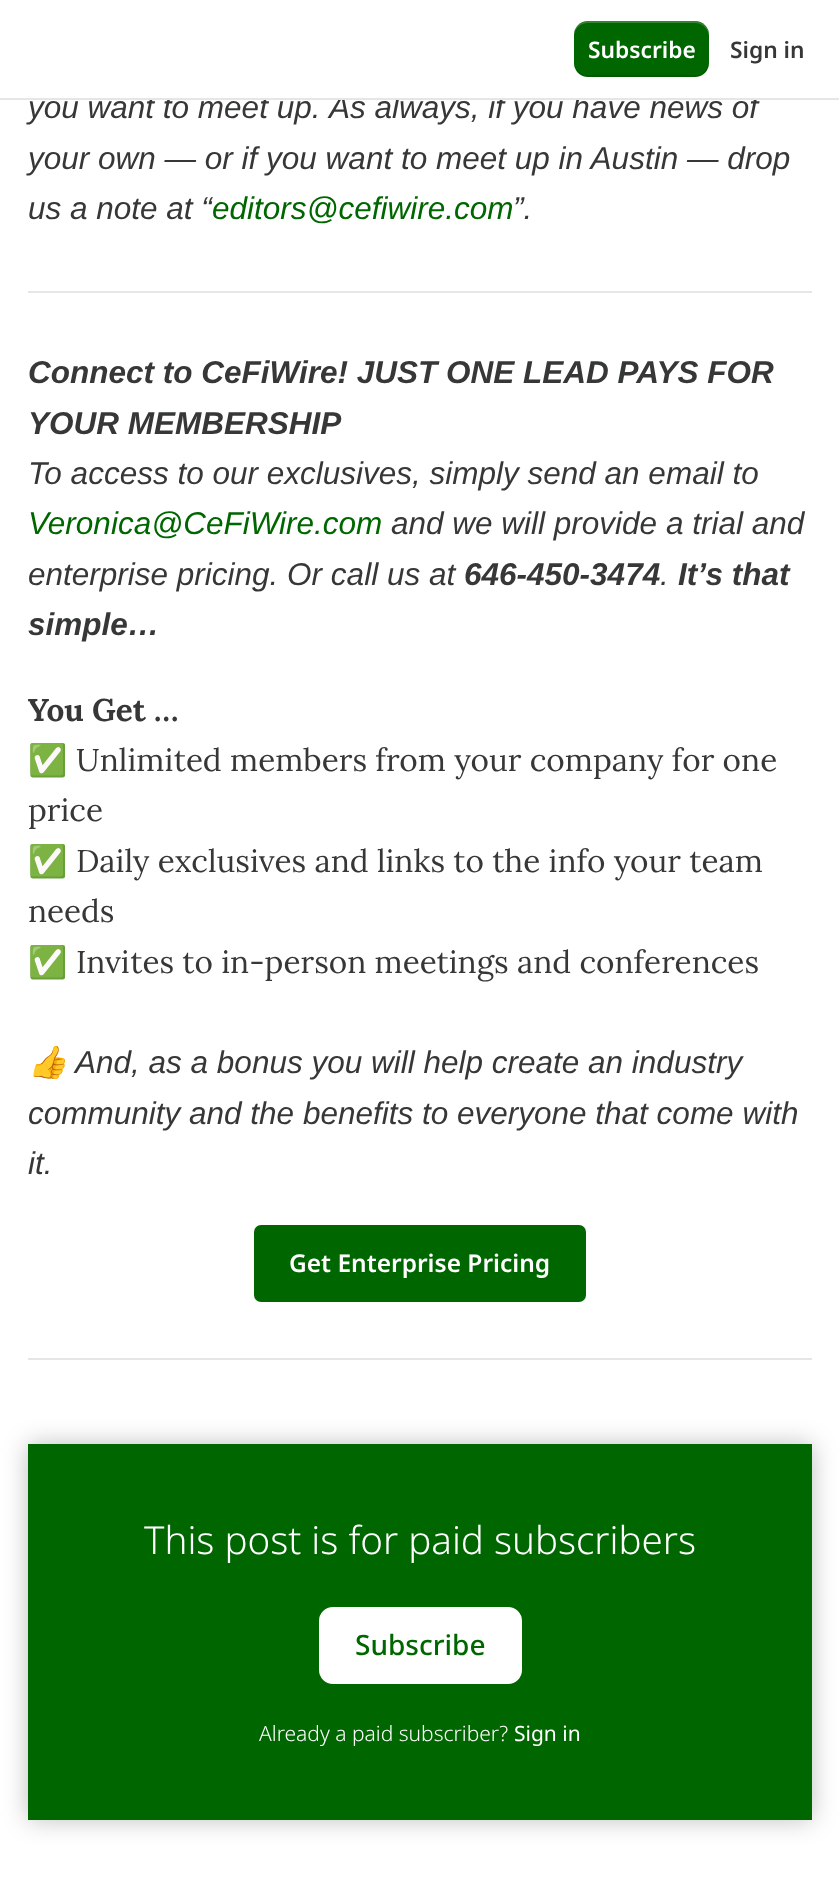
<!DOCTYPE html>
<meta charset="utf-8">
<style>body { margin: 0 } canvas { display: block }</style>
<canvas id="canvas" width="839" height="1886"></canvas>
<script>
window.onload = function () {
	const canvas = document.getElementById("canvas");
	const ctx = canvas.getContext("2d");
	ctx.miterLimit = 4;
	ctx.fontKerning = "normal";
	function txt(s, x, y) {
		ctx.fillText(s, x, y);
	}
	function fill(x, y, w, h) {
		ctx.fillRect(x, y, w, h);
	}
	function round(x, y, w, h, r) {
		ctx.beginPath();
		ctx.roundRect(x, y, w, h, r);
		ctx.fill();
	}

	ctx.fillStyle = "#FFFFFF";
	fill(0, 0, 839, 1886);
	ctx.fillStyle = "#006600";
	round(574, 21, 135, 56, 14);
	ctx.fillStyle = "rgba(0, 0, 0, 0.1)";
	ctx.beginPath();
	ctx.moveTo(574, 61);
	ctx.bezierCurveTo(574, 80, 592, 77, 606, 77);
	ctx.lineTo(677, 77);
	ctx.bezierCurveTo(691, 77, 709, 80, 709, 61);
	ctx.bezierCurveTo(709, 69, 702, 75, 695, 75);
	ctx.lineTo(588, 75);
	ctx.bezierCurveTo(580, 75, 574, 69, 574, 61);
	ctx.closePath();
	ctx.fill();
	ctx.fillStyle = "rgba(255, 255, 255, 0.2)";
	ctx.beginPath();
	ctx.moveTo(588, 23);
	ctx.lineTo(695, 23);
	ctx.bezierCurveTo(702, 23, 709, 29, 709, 37);
	ctx.bezierCurveTo(709, 18, 691, 21, 677, 21);
	ctx.lineTo(606, 21);
	ctx.bezierCurveTo(592, 21, 574, 18, 574, 37);
	ctx.bezierCurveTo(574, 29, 580, 23, 588, 23);
	ctx.closePath();
	ctx.fill();
	ctx.fillStyle = "#E6E6E6";
	fill(28, 291, 784, 2);
	ctx.fillStyle = "#006600";
	round(254, 1225, 332, 77, 7);
	ctx.fillStyle = "#E6E6E6";
	fill(28, 1358, 784, 2);
	ctx.fillStyle = "#006600";
	fill(28, 1444, 784, 376);
	ctx.fillStyle = "#FFFFFF";
	ctx.beginPath();
	ctx.roundRect(320, 1608, 201, 75, 13);
	ctx.fill();
	ctx.strokeStyle = "#FFFFFF";
	ctx.lineWidth = 2;
	ctx.stroke();
	ctx.save();
	ctx.beginPath();
	ctx.moveTo(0, 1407);
	ctx.lineTo(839, 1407);
	ctx.lineTo(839, 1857);
	ctx.lineTo(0, 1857);
	ctx.closePath();
	ctx.moveTo(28, 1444);
	ctx.lineTo(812, 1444);
	ctx.lineTo(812, 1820);
	ctx.lineTo(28, 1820);
	ctx.closePath();
	ctx.clip("evenodd");
	ctx.fillStyle = "rgba(0, 0, 0, 0.25)";
	ctx.filter = "blur(12px)";
	ctx.beginPath();
	ctx.rect(28, 1444, 784, 376);
	ctx.fill();
	ctx.filter = "none";
	ctx.restore();
	ctx.font = "600 22.75px Noto Sans";
	txt("Subscribe", 588, 58);
	ctx.fillStyle = "#363737";
	txt("Sign in", 730, 58);
	ctx.font = "italic 31.5px Liberation Sans";
	txt("you want to meet up.", 28, 118);
	txt("As always, if you have news of", 329, 118);
	ctx.fillStyle = "#E6E6E6";
	fill(0, 98, 839, 2);
	ctx.fillStyle = "#FFFFFF";
	fill(150, 95, 611, 3);
	ctx.fillStyle = "#363737";
	txt("your own — or if you want to meet up in Austin — drop", 28, 169);
	txt("us a note at “", 28, 219);
	ctx.fillStyle = "#006600";
	txt("editors@cefiwire.com", 212, 219);
	ctx.fillStyle = "#363737";
	txt("”.", 513, 219);
	ctx.font = "italic bold 31.5px Liberation Sans";
	txt("Connect to CeFiWire! JUST ONE LEAD PAYS FOR", 28, 383);
	txt("YOUR MEMBERSHIP", 28, 434);
	ctx.font = "italic 31.5px Liberation Sans";
	txt("To access to our exclusives, simply send an email to", 28, 484);
	ctx.fillStyle = "#006600";
	txt("Veronica@CeFiWire.com", 28, 534);
	ctx.fillStyle = "#363737";
	txt("and we will provide a trial and", 391, 534);
	txt("enterprise pricing. Or call us at", 28, 585);
	ctx.font = "italic bold 31.5px Liberation Sans";
	txt("646-450-3474", 464, 585);
	ctx.font = "italic 31.5px Liberation Sans";
	txt(".", 660, 585);
	ctx.font = "italic bold 31.5px Liberation Sans";
	txt("It’s that", 678, 585);
	txt("simple…", 28, 635);
	ctx.font = "bold 31.5px Lora";
	txt("You Get …", 28, 721);
	ctx.font = "31.5px Noto Color Emoji";
	txt("✅", 28, 771);
	ctx.font = "31.5px Lora";
	txt("Unlimited members from your company for one", 76, 771);
	txt("price", 28, 821);
	ctx.font = "31.5px Noto Color Emoji";
	txt("✅", 28, 872);
	ctx.font = "31.5px Lora";
	txt("Daily exclusives and links to the info your team", 76, 872);
	txt("needs", 28, 922);
	ctx.font = "31.5px Noto Color Emoji";
	txt("✅", 28, 973);
	ctx.font = "31.5px Lora";
	txt("Invites to in-person meetings and conferences", 76, 973);
	ctx.font = "italic 31.5px Noto Color Emoji";
	txt("👍", 28, 1073);
	ctx.font = "italic 31.5px Liberation Sans";
	txt("And, as a bonus you will help create an industry", 75, 1073);
	txt("community and the benefits to everyone that come with", 28, 1124);
	txt("it.", 28, 1174);
	ctx.font = "600 24.5px Noto Sans";
	ctx.fillStyle = "#FFFFFF";
	txt("Get Enterprise Pricing", 289, 1272);
	ctx.font = "300 38.5px Noto Sans";
	txt("This post is for paid subscribers", 144, 1554);
	ctx.font = "500 28px Noto Sans";
	ctx.fillStyle = "#006600";
	txt("Subscribe", 355, 1655);
	ctx.font = "300 21px Noto Sans";
	ctx.fillStyle = "#FFFFFF";
	txt("Already a paid subscriber?", 259, 1741);
	ctx.font = "21px Noto Sans";
	txt("Sign in", 514, 1741);
};
</script>
